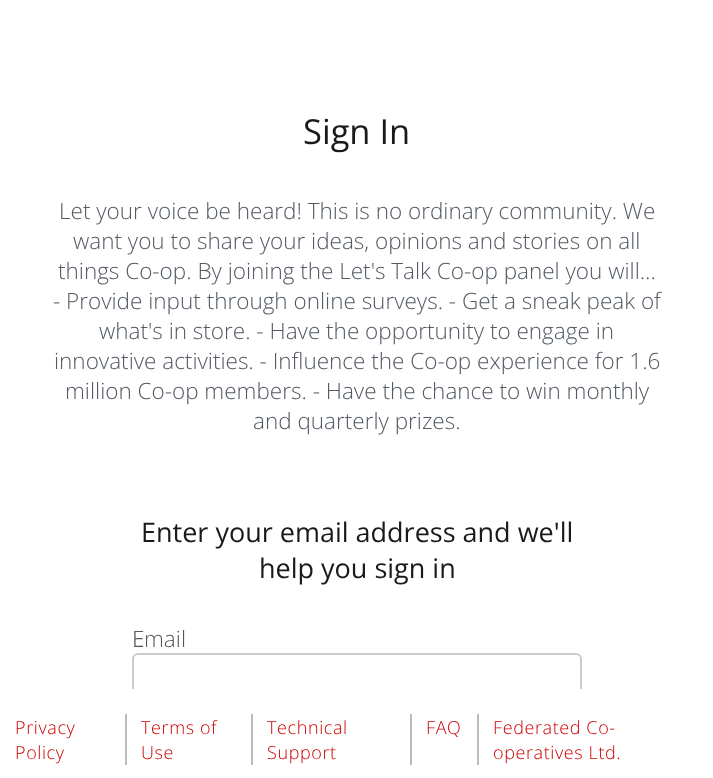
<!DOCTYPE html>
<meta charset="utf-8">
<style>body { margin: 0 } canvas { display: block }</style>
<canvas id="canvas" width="713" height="778"></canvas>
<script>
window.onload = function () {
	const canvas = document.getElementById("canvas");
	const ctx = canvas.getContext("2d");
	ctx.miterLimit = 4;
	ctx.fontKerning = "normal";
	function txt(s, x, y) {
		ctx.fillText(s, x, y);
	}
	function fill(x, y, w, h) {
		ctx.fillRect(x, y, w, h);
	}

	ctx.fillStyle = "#FFFFFF";
	fill(0, 0, 713, 778);
	ctx.save();
	ctx.beginPath();
	ctx.rect(0, 0, 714, 689);
	ctx.clip();
	ctx.beginPath();
	ctx.roundRect(133, 654, 448, 58, 5);
	ctx.strokeStyle = "#CCCCCC";
	ctx.lineWidth = 2;
	ctx.stroke();
	ctx.restore();
	ctx.fillStyle = "#BBBBBB";
	fill(125, 714, 2, 51);
	fill(251, 714, 2, 51);
	fill(410, 714, 2, 51);
	fill(477, 714, 2, 51);
	ctx.font = "34.5px Open Sans";
	ctx.fillStyle = "#1A1A1A";
	txt("Sign In", 303, 144);
	ctx.font = "300 22.5px Open Sans";
	ctx.fillStyle = "#535A63";
	txt("Let your voice be heard! This is no ordinary community. We", 59, 219);
	txt("want you to share your ideas, opinions and stories on all", 73, 249);
	txt("things Co-op. By joining the Let's Talk Co-op panel you will...", 58, 279);
	txt("- Provide input through online surveys. - Get a sneak peak of", 53, 309);
	txt("what's in store. - Have the opportunity to engage in", 99, 339);
	txt("innovative activities. - Influence the Co-op experience for 1.6", 54, 369);
	txt("million Co-op members. - Have the chance to win monthly", 65, 399);
	txt("and quarterly prizes.", 253, 429);
	ctx.font = "27px Open Sans";
	ctx.fillStyle = "#1A1A1A";
	txt("Enter your email address and we'll", 141, 542);
	txt("help you sign in", 259, 578);
	ctx.font = "300 22.5px Noto Sans";
	ctx.fillStyle = "#585858";
	txt("E", 132, 647);
	ctx.font = "300 22.5px Open Sans";
	txt("mail", 144, 647);
	ctx.letterSpacing = "0.6px";
	ctx.font = "300 18px Open Sans";
	ctx.fillStyle = "#CC0000";
	txt("Privacy", 15, 734);
	txt("Policy", 15, 759);
	txt("Terms of", 141, 734);
	txt("Use", 141, 759);
	txt("Technical", 267, 734);
	txt("Support", 267, 759);
	txt("FAQ", 426, 734);
	txt("Federated Co-", 493, 734);
	txt("operatives Ltd.", 493, 759);
};
</script>
